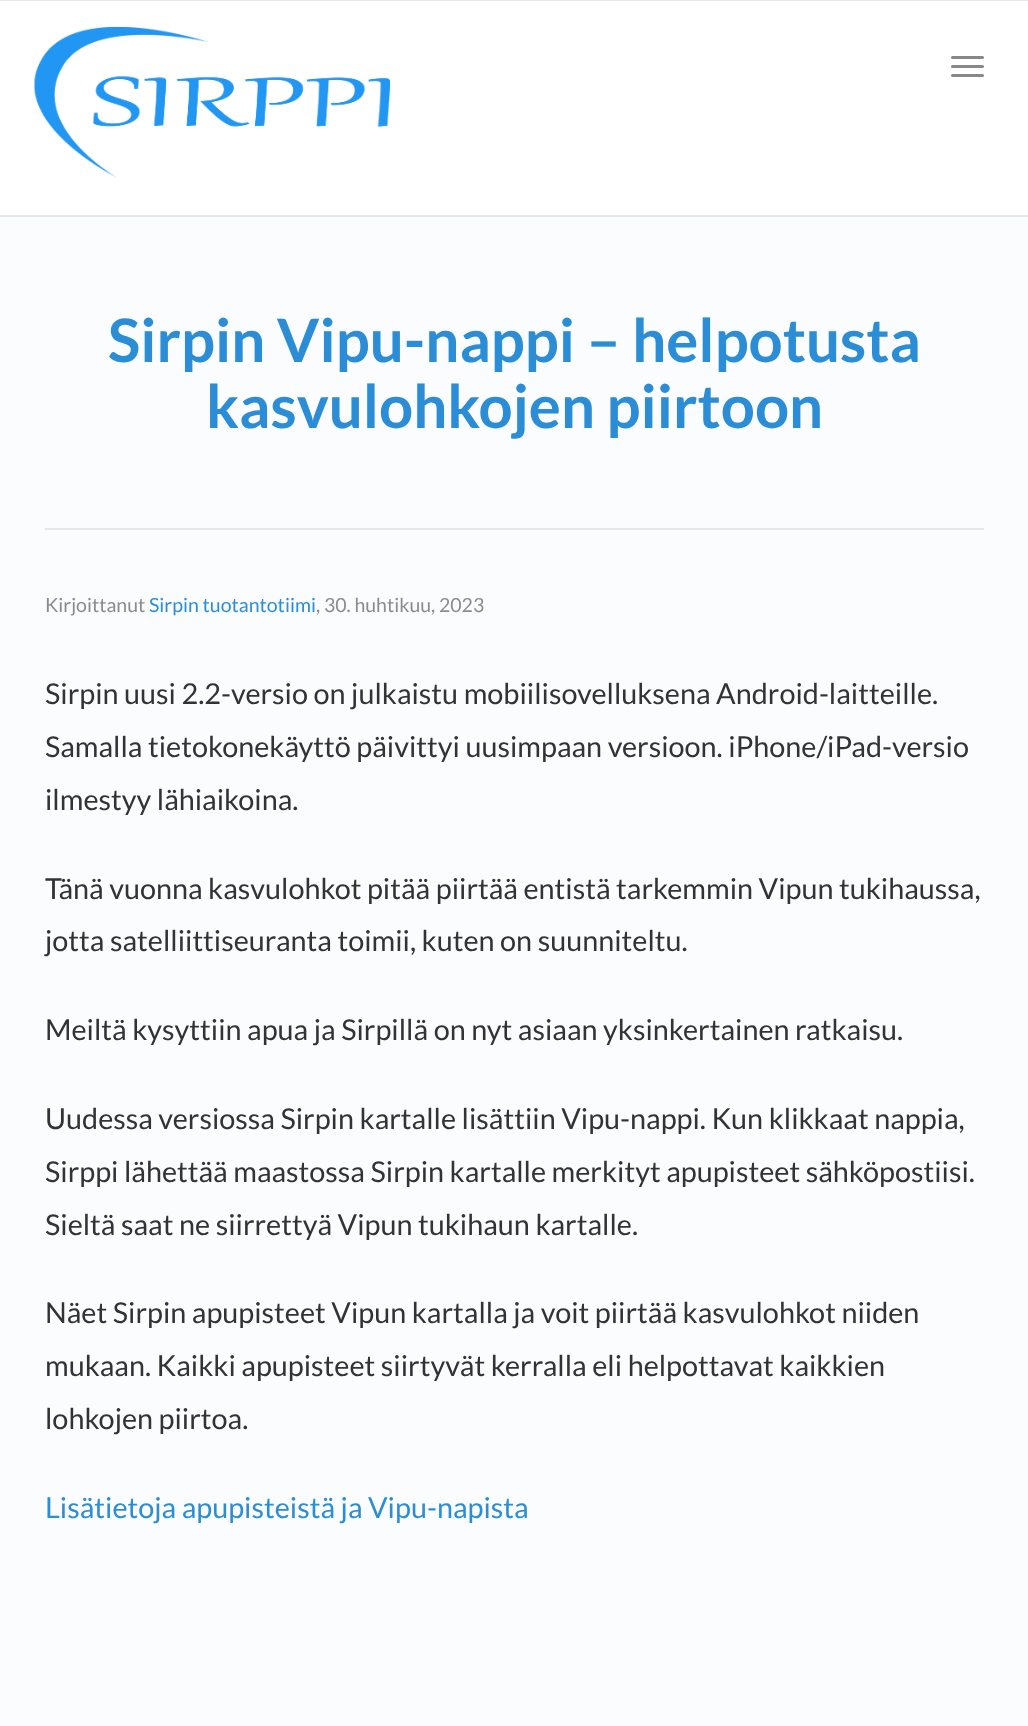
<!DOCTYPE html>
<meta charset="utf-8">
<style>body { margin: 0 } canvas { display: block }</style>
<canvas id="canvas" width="1028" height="1726"></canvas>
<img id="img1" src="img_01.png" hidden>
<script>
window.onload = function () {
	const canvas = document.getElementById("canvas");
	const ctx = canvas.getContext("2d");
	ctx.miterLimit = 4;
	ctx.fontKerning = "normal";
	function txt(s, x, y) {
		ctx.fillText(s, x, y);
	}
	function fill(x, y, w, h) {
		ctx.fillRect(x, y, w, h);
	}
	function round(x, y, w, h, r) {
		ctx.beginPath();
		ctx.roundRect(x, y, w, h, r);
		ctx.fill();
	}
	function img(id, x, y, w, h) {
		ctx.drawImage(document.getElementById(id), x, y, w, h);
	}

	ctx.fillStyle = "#FBFCFD";
	fill(0, 0, 1028, 1726);
	ctx.fillStyle = "#E7E7E7";
	fill(0, 0, 1028, 1);
	ctx.fillStyle = "#FFFFFF";
	fill(0, 1, 1028, 214);
	ctx.fillStyle = "#E7E7E7";
	fill(0, 215, 1028, 2);
	img("img1", 34, 27, 356, 150);
	ctx.fillStyle = "#888888";
	round(951, 56, 33, 3, 1.5);
	round(951, 65, 33, 3, 1.5);
	round(951, 74, 33, 3, 1.5);
	ctx.fillStyle = "#E6E6E6";
	fill(45, 528, 939, 2);
	ctx.font = "bold 60px Lato";
	ctx.fillStyle = "#2B8DD6";
	txt("Sirpin Vipu-nappi – helpotusta", 108, 362);
	txt("kasvulohkojen piirtoon", 206, 428);
	ctx.font = "19.5px Lato";
	ctx.fillStyle = "#8B8B8B";
	txt("Kirjoittanut", 45, 612);
	ctx.fillStyle = "#2B8DD6";
	txt("Sirpin tuotantotiimi", 149, 612);
	ctx.fillStyle = "#8B8B8B";
	txt(", 30. huhtikuu, 2023", 316, 612);
	ctx.font = "28.8px Lato";
	ctx.fillStyle = "#333333";
	txt("Sirpin uusi 2.2-versio on julkaistu mobiilisovelluksena Android-laitteille.", 45, 704);
	txt("Samalla tietokonekäyttö päivittyi uusimpaan versioon. iPhone/iPad-versio", 45, 757);
	txt("ilmestyy lähiaikoina.", 45, 810);
	txt("Tänä vuonna kasvulohkot pitää piirtää entistä tarkemmin Vipun tukihaussa,", 45, 899);
	txt("jotta satelliittiseuranta toimii, kuten on suunniteltu.", 45, 951);
	txt("Meiltä kysyttiin apua ja Sirpillä on nyt asiaan yksinkertainen ratkaisu.", 45, 1040);
	txt("Uudessa versiossa Sirpin kartalle lisättiin Vipu-nappi. Kun klikkaat nappia,", 45, 1129);
	txt("Sirppi lähettää maastossa Sirpin kartalle merkityt apupisteet sähköpostiisi.", 45, 1182);
	txt("Sieltä saat ne siirrettyä Vipun tukihaun kartalle.", 45, 1235);
	txt("Näet Sirpin apupisteet Vipun kartalla ja voit piirtää kasvulohkot niiden", 45, 1323);
	txt("mukaan. Kaikki apupisteet siirtyvät kerralla eli helpottavat kaikkien", 45, 1376);
	txt("lohkojen piirtoa.", 45, 1429);
	ctx.fillStyle = "#2B8DD6";
	txt("Lisätietoja apupisteistä ja Vipu-napista", 45, 1518);
};
</script>
